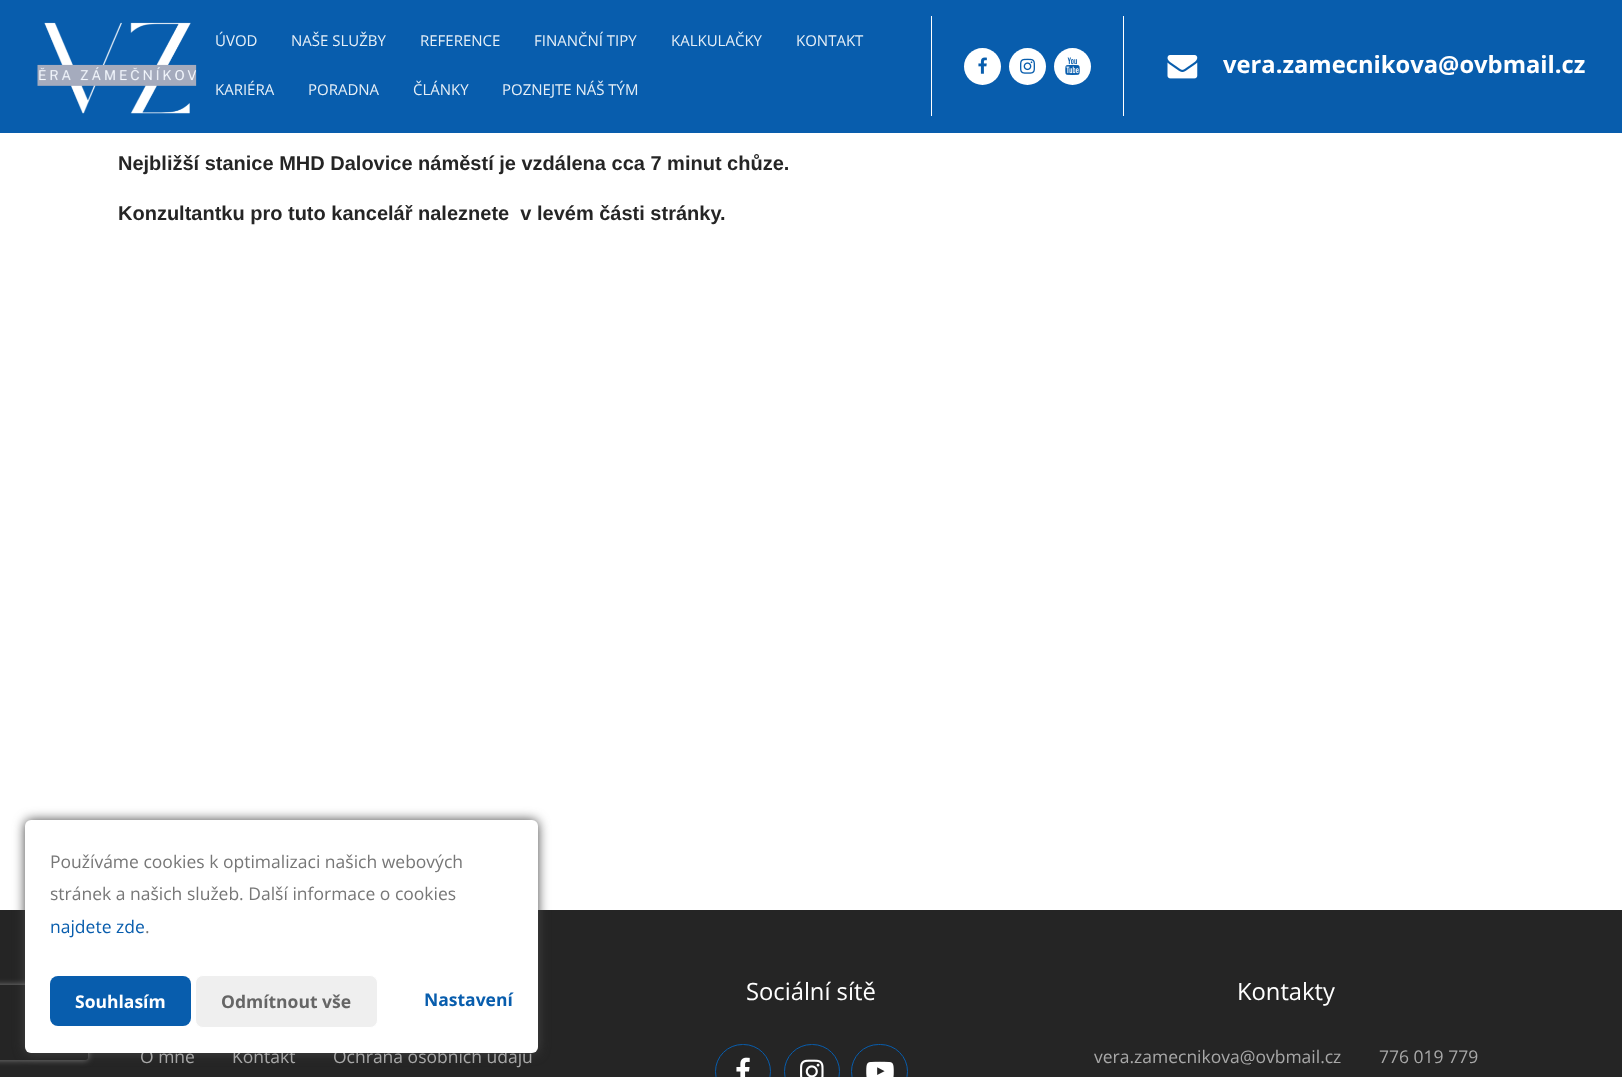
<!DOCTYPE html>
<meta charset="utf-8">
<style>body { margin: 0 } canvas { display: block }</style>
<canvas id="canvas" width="1622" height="1077"></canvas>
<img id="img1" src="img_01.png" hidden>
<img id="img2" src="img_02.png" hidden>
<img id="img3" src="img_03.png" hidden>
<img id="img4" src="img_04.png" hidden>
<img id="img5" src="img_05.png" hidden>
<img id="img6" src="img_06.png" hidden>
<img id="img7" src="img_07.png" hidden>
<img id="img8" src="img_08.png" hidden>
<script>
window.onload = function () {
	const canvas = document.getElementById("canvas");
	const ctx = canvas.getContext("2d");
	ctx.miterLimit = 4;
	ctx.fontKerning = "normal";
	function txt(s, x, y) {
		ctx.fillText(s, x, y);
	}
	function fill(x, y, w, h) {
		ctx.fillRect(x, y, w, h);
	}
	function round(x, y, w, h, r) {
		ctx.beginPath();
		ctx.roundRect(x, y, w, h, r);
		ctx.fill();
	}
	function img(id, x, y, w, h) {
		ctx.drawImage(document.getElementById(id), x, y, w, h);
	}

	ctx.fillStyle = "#FFFFFF";
	fill(0, 0, 1622, 1077);
	ctx.fillStyle = "#085DAD";
	fill(0, 0, 1622, 133);
	img("img1", 37, 22, 160, 92);
	ctx.fillStyle = "#FFFFFF";
	fill(1123, 16, 1, 100);
	fill(931, 16, 1, 100);
	ctx.beginPath();
	ctx.arc(982.5, 66.5, 18.5, 0, Math.PI * 2);
	ctx.fill();
	img("img2", 978, 57, 9, 17);
	ctx.beginPath();
	ctx.arc(1027.5, 66.5, 18.5, 0, Math.PI * 2);
	ctx.fill();
	img("img3", 1020, 58, 15, 16);
	ctx.beginPath();
	ctx.arc(1072.5, 66.5, 18.5, 0, Math.PI * 2);
	ctx.fill();
	img("img4", 1065, 57, 15, 18);
	img("img5", 1167, 55, 31, 24);
	ctx.fillStyle = "#252525";
	fill(0, 910, 1622, 167);
	ctx.fillStyle = "#444444";
	ctx.filter = "blur(6px)";
	ctx.beginPath();
	ctx.roundRect(25, 820, 513, 233, 6);
	ctx.fill();
	ctx.filter = "none";
	ctx.save();
	ctx.beginPath();
	ctx.moveTo(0, 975);
	ctx.lineTo(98, 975);
	ctx.lineTo(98, 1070);
	ctx.lineTo(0, 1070);
	ctx.closePath();
	ctx.moveTo(-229.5, 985);
	ctx.lineTo(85.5, 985);
	ctx.bezierCurveTo(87, 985, 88, 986, 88, 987.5);
	ctx.lineTo(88, 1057.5);
	ctx.bezierCurveTo(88, 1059, 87, 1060, 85.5, 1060);
	ctx.lineTo(-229.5, 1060);
	ctx.bezierCurveTo(-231, 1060, -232, 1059, -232, 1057.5);
	ctx.lineTo(-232, 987.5);
	ctx.bezierCurveTo(-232, 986, -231, 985, -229.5, 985);
	ctx.closePath();
	ctx.clip("evenodd");
	ctx.fillStyle = "#808080";
	ctx.filter = "blur(3px)";
	ctx.beginPath();
	ctx.roundRect(-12, 985, 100, 75, 2.5);
	ctx.fill();
	ctx.filter = "none";
	ctx.restore();
	ctx.beginPath();
	ctx.roundRect(715.5, 1044.5, 55, 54, 27);
	ctx.strokeStyle = "#085DAD";
	ctx.stroke();
	img("img6", 736, 1057, 14, 20);
	ctx.beginPath();
	ctx.roundRect(784.5, 1044.5, 55, 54, 27);
	ctx.stroke();
	img("img7", 800, 1059, 24, 18);
	ctx.beginPath();
	ctx.roundRect(851.5, 1044.5, 56, 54, 27);
	ctx.stroke();
	img("img8", 866, 1061, 28, 16);
	ctx.font = "15px Open Sans";
	ctx.fillStyle = "#E6EFF7";
	txt("ÚVOD", 215, 46);
	txt("NAŠE SLUŽBY", 291, 46);
	txt("REFERENCE", 420, 46);
	txt("FINANČNÍ TIPY", 534, 46);
	txt("KALKULAČKY", 671, 46);
	txt("KONTAKT", 796, 46);
	txt("KARIÉRA", 215, 95);
	txt("PORADNA", 308, 95);
	txt("ČLÁNKY", 413, 95);
	txt("POZNEJTE NÁŠ TÝM", 502, 95);
	ctx.font = "bold 23.75px Open Sans";
	ctx.fillStyle = "#FFFFFF";
	txt("vera.zamecnikova@ovbmail.cz", 1223, 73);
	ctx.font = "bold 20px Liberation Sans";
	ctx.fillStyle = "#252525";
	txt("Nejbližší stanice MHD Dalovice náměstí je vzdálena cca 7 minut chůze.", 118, 170);
	txt("Konzultantku pro tuto kancelář naleznete  v levém části stránky.", 118, 220);
	ctx.font = "17.5px Open Sans";
	ctx.fillStyle = "#A8A8A8";
	txt("O mně", 140, 1063);
	txt("Kontakt", 232, 1063);
	txt("Ochrana osobních údajů", 333, 1063);
	ctx.fillStyle = "#FFFFFF";
	round(25, 820, 513, 233, 6);
	ctx.fillStyle = "#EFEFEF";
	ctx.beginPath();
	ctx.roundRect(195.5, 975.5, 182, 52, 7.5);
	ctx.fill();
	ctx.strokeStyle = "#FFFFFF";
	ctx.stroke();
	ctx.font = "bold 17.5px Open Sans";
	ctx.fillStyle = "#666666";
	txt("Odmítnout vše", 221, 1008);
	ctx.fillStyle = "#085DAD";
	round(50, 976, 141, 50, 8);
	ctx.fillStyle = "#FFFFFF";
	txt("Souhlasím", 75, 1008);
	ctx.font = "17.5px Open Sans";
	ctx.fillStyle = "#777777";
	txt(".", 145, 933);
	ctx.fillStyle = "#085DAD";
	txt("najdete zde", 50, 933);
	ctx.fillStyle = "#777777";
	txt("stránek a našich služeb. Další informace o cookies", 50, 900);
	txt("Používáme cookies k optimalizaci našich webových", 50, 868);
	ctx.font = "bold 17.5px Open Sans";
	ctx.fillStyle = "#085DAD";
	txt("Nastavení", 424, 1006);
	ctx.font = "23.75px Open Sans";
	ctx.fillStyle = "#FFFFFF";
	txt("Sociální sítě", 746, 1000);
	txt("Kontakty", 1237, 1000);
	ctx.font = "17.5px Open Sans";
	ctx.fillStyle = "#A8A8A8";
	txt("vera.zamecnikova@ovbmail.cz", 1094, 1063);
	txt("776 019 779", 1379, 1063);
};
</script>
